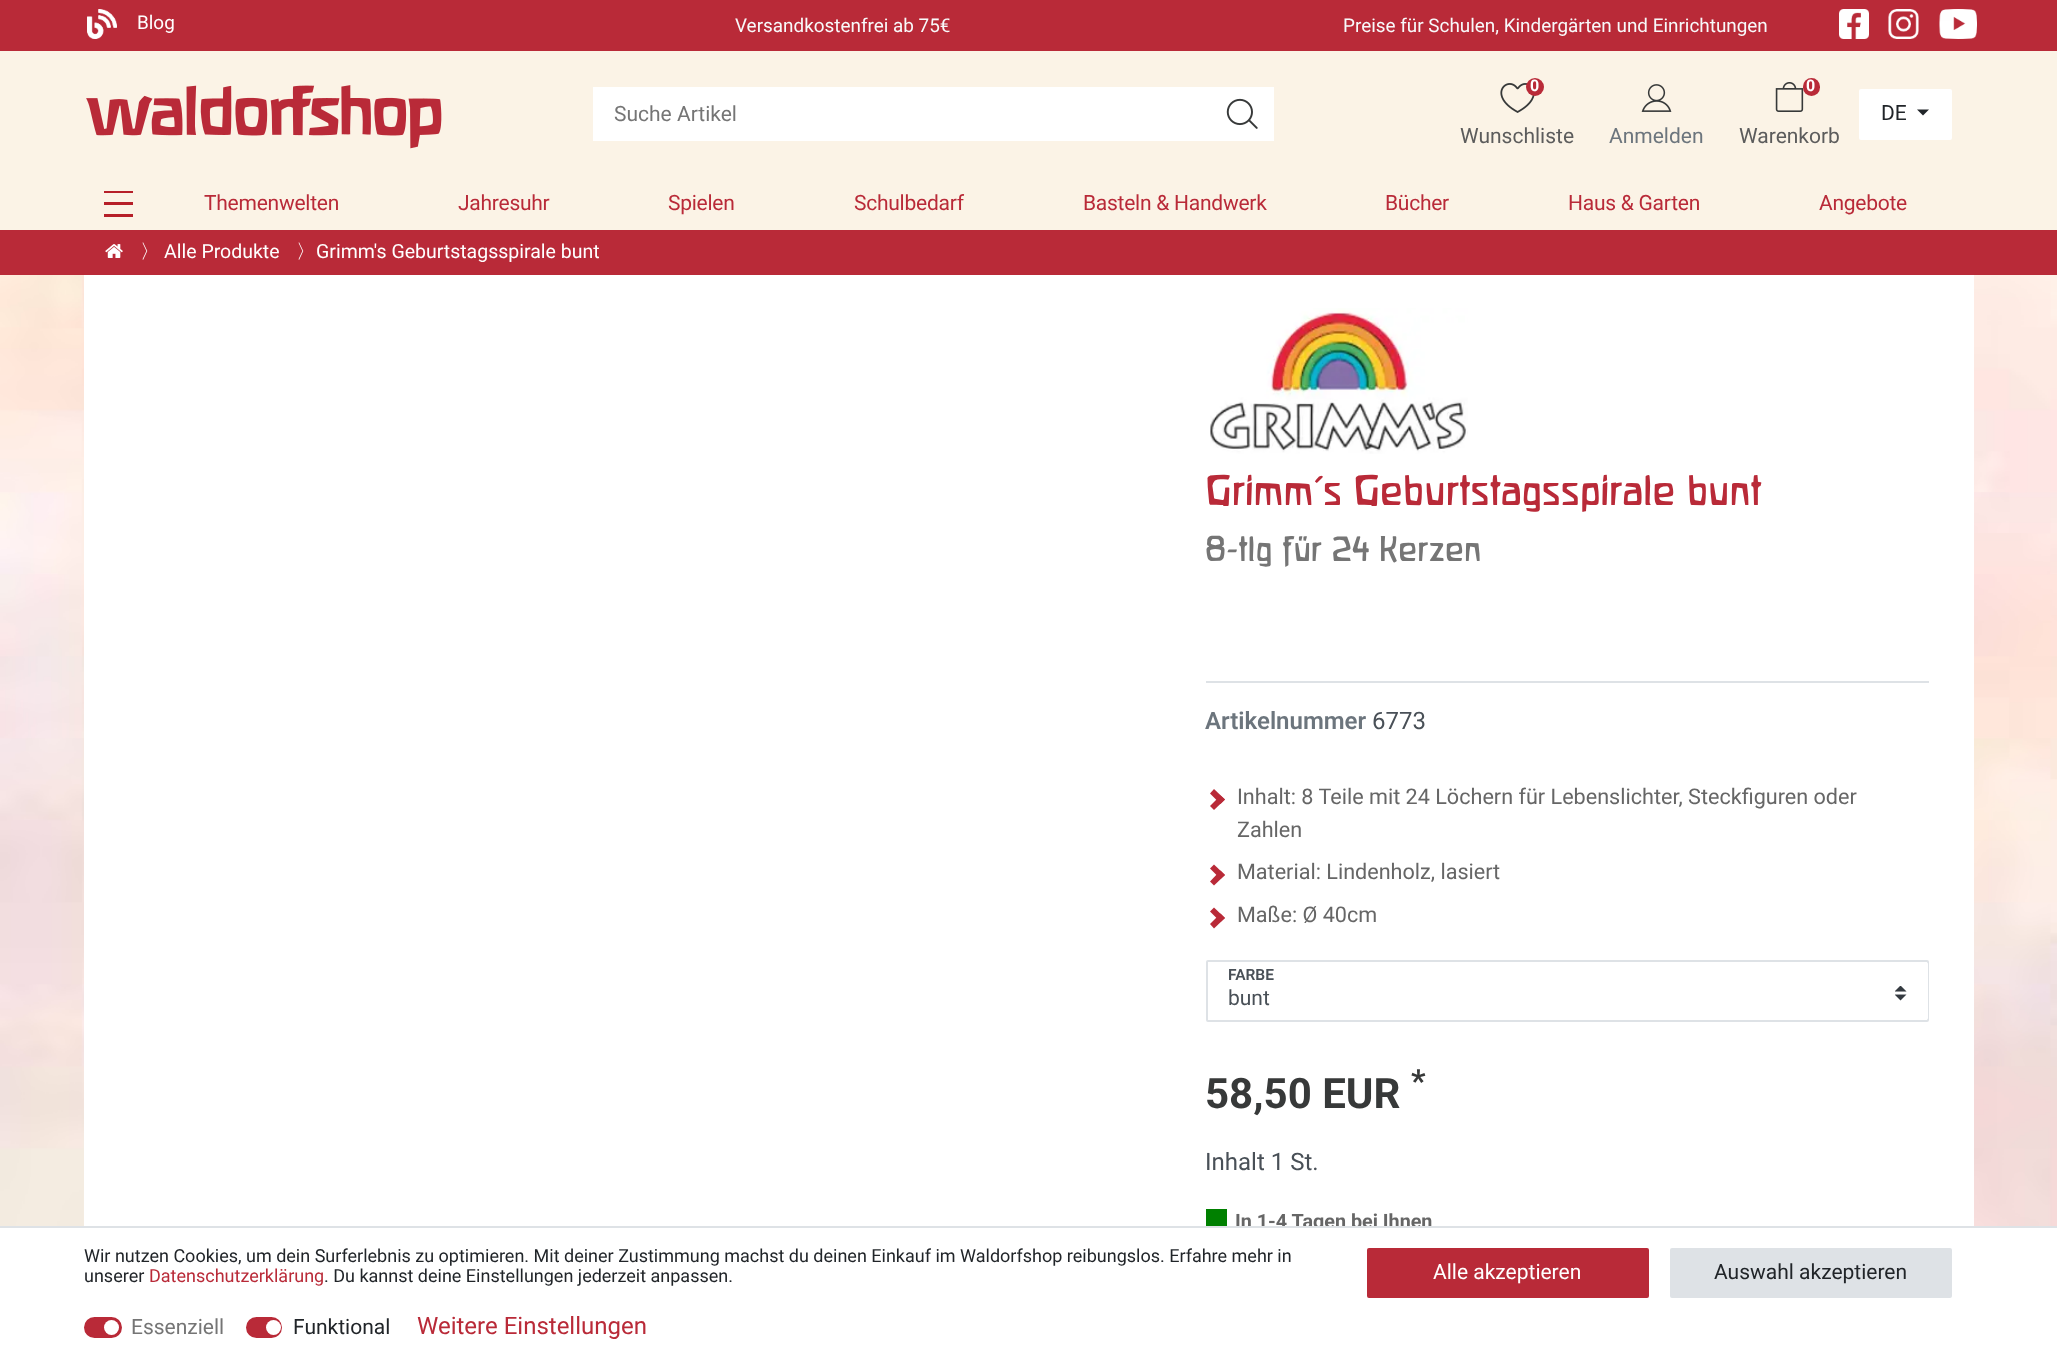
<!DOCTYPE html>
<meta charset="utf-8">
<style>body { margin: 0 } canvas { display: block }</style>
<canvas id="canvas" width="2057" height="1365"></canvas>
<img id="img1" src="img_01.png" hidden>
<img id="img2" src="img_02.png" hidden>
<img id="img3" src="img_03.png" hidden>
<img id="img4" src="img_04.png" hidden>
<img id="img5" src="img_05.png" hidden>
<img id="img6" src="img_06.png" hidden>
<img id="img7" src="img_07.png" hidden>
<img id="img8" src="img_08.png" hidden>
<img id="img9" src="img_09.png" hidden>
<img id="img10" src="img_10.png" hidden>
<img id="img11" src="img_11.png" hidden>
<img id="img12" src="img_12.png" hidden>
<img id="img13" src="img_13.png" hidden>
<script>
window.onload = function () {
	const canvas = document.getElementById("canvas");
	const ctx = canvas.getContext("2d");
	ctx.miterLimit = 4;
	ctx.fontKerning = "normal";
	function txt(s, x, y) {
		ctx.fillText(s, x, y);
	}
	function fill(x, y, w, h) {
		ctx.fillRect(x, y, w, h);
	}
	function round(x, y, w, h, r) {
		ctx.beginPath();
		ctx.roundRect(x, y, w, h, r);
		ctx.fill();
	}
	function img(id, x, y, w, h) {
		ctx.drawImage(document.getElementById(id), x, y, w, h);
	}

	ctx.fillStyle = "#FFFFFF";
	fill(0, 0, 2057, 1365);
	ctx.fillStyle = "#B92A38";
	fill(0, 0, 2057, 51);
	img("img1", 87, 9, 30, 30);
	img("img2", 1839, 9, 30, 30);
	img("img3", 1888, 9, 31, 30);
	img("img4", 1939, 9, 38, 30);
	ctx.fillStyle = "#FBF3E6";
	fill(0, 51, 2057, 179);
	img("img5", 86, 85, 356, 64);
	ctx.fillStyle = "#FFFFFF";
	fill(593, 87, 681, 54);
	img("img6", 1226, 98, 32, 31);
	img("img7", 1500, 83, 35, 30);
	ctx.fillStyle = "#B92A38";
	ctx.beginPath();
	ctx.arc(1535, 87, 9, 0, Math.PI * 2);
	ctx.fill();
	img("img8", 1775, 82, 29, 30);
	round(1803, 78, 17, 18, 8.5);
	ctx.fillStyle = "#FFFFFF";
	round(1859, 89, 93, 51, 2);
	ctx.fillStyle = "#212529";
	ctx.beginPath();
	ctx.moveTo(1917, 109.5);
	ctx.lineTo(1929, 109.5);
	ctx.lineTo(1923, 115.5);
	ctx.closePath();
	ctx.fill();
	img("img9", 1641, 84, 31, 28);
	ctx.fillStyle = "#B61F29";
	fill(104, 191, 29, 2);
	fill(104, 202, 29, 3);
	fill(104, 214, 29, 3);
	ctx.fillStyle = "#B92A38";
	fill(0, 230, 2057, 45);
	img("img10", 105, 244, 18, 14);
	img("img11", 0, 275, 2057, 951);
	ctx.fillStyle = "#FFFFFF";
	fill(84, 275, 1890, 951);
	img("img12", 1210, 308, 258, 146);
	ctx.fillStyle = "#DEE2E6";
	fill(1206, 681, 723, 2);
	ctx.fillStyle = "#B92A38";
	ctx.beginPath();
	ctx.moveTo(1214, 789);
	ctx.lineTo(1225, 799.5);
	ctx.lineTo(1220.5, 804);
	ctx.lineTo(1210, 793.5);
	ctx.closePath();
	ctx.fill();
	ctx.beginPath();
	ctx.moveTo(1220.5, 795.5);
	ctx.lineTo(1225, 799.5);
	ctx.lineTo(1214, 810);
	ctx.lineTo(1210, 806);
	ctx.closePath();
	ctx.fill();
	ctx.beginPath();
	ctx.moveTo(1214, 864.5);
	ctx.lineTo(1225, 875);
	ctx.lineTo(1220.5, 879);
	ctx.lineTo(1210, 868.5);
	ctx.closePath();
	ctx.fill();
	ctx.beginPath();
	ctx.moveTo(1220.5, 870.5);
	ctx.lineTo(1225, 875);
	ctx.lineTo(1214, 885.5);
	ctx.lineTo(1210, 881.5);
	ctx.closePath();
	ctx.fill();
	ctx.beginPath();
	ctx.moveTo(1214, 907.5);
	ctx.lineTo(1225, 918);
	ctx.lineTo(1220.5, 922);
	ctx.lineTo(1210, 911.5);
	ctx.closePath();
	ctx.fill();
	ctx.beginPath();
	ctx.moveTo(1220.5, 913.5);
	ctx.lineTo(1225, 918);
	ctx.lineTo(1214, 928.5);
	ctx.lineTo(1210, 924);
	ctx.closePath();
	ctx.fill();
	ctx.beginPath();
	ctx.roundRect(1207, 961, 721, 60, 1);
	ctx.strokeStyle = "#DEE2E6";
	ctx.lineWidth = 2;
	ctx.stroke();
	ctx.save();
	ctx.beginPath();
	ctx.roundRect(1208, 962, 720, 58, 1);
	ctx.clip();
	ctx.fillStyle = "#FFFFFF";
	round(1208, 962, 720, 58, 2);
	ctx.restore();
	img("img13", 1895, 986, 12, 15);
	ctx.fillStyle = "#008000";
	fill(1206, 1209, 21, 17);
	ctx.fillStyle = "#B92A38";
	ctx.beginPath();
	ctx.roundRect(85, 1318, 36, 19, 9.5);
	ctx.fill();
	ctx.strokeStyle = "#B92A38";
	ctx.stroke();
	ctx.fillStyle = "#FFFFFF";
	ctx.beginPath();
	ctx.arc(111.5, 1327.5, 7.5, 0, Math.PI * 2);
	ctx.fill();
	ctx.fillStyle = "#B92A38";
	ctx.beginPath();
	ctx.roundRect(247, 1318, 34, 19, 9.5);
	ctx.fill();
	ctx.stroke();
	ctx.fillStyle = "#FFFFFF";
	ctx.beginPath();
	ctx.arc(273.5, 1327.5, 7.5, 0, Math.PI * 2);
	ctx.fill();
	ctx.fillStyle = "#B92A38";
	ctx.beginPath();
	ctx.roundRect(1368, 1249, 280, 48, 1);
	ctx.fill();
	ctx.stroke();
	ctx.fillStyle = "#DEE2E6";
	ctx.beginPath();
	ctx.roundRect(1671, 1249, 280, 48, 1);
	ctx.fill();
	ctx.strokeStyle = "#DEE2E6";
	ctx.stroke();
	ctx.font = "18.9px Roboto";
	ctx.fillStyle = "#FFFFFF";
	txt("Blog", 137, 29);
	ctx.fillStyle = "#F8F9FA";
	txt("Versandkostenfrei ab 75€", 735, 32);
	txt("Preise für Schulen, Kindergärten und Einrichtungen", 1343, 32);
	ctx.font = "21px Roboto";
	ctx.fillStyle = "#757575";
	txt("Suche Artikel", 614, 121);
	ctx.font = "bold 16px Roboto";
	ctx.fillStyle = "#FFFFFF";
	txt("0", 1530, 91);
	ctx.font = "21px Roboto";
	ctx.fillStyle = "#5C5C5C";
	txt("Wunschliste", 1460, 143);
	ctx.font = "bold 16px Roboto";
	ctx.fillStyle = "#FFFFFF";
	txt("0", 1806, 91);
	ctx.font = "21px Roboto";
	ctx.fillStyle = "#5C5C5C";
	txt("Warenkorb", 1739, 143);
	ctx.fillStyle = "#212529";
	txt("DE", 1881, 120);
	ctx.fillStyle = "#6C757D";
	txt("Anmelden", 1609, 143);
	ctx.letterSpacing = "-0.25px";
	ctx.fillStyle = "#B92A38";
	txt("Themenwelten", 204, 210);
	txt("Jahresuhr", 458, 210);
	txt("Spielen", 668, 210);
	txt("Schulbedarf", 854, 210);
	txt("Basteln & Handwerk", 1083, 210);
	txt("Bücher", 1385, 210);
	txt("Haus & Garten", 1568, 210);
	txt("Angebote", 1819, 210);
	ctx.letterSpacing = "0px";
	ctx.font = "500 19.5px WenQuanYi Zen Hei";
	ctx.fillStyle = "#FFFFFF";
	txt("〉", 140, 258);
	ctx.font = "19.5px Roboto";
	txt("Alle Produkte", 164, 258);
	ctx.font = "500 19.5px WenQuanYi Zen Hei";
	txt("〉", 296, 258);
	ctx.font = "19.5px Roboto";
	txt("Grimm's Geburtstagsspirale bunt", 316, 258);
	ctx.font = "37.75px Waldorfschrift";
	ctx.fillStyle = "#B92A38";
	txt("Grimm's Geburtstagsspirale bunt", 1205, 505);
	ctx.font = "31.25px Waldorfschrift";
	ctx.fillStyle = "#757575";
	txt("8-tlg für 24 Kerzen", 1205, 561);
	ctx.font = "600 24px Roboto";
	ctx.fillStyle = "#6C757D";
	txt("Artikelnummer", 1205, 729);
	ctx.font = "24px Roboto";
	ctx.fillStyle = "#495057";
	txt("6773", 1372, 729);
	ctx.font = "21.6px Roboto";
	ctx.fillStyle = "#666666";
	txt("Inhalt: 8 Teile mit 24 Löchern für Lebenslichter, Steckfiguren oder", 1237, 804);
	txt("Zahlen", 1237, 837);
	txt("Material: Lindenholz, lasiert", 1237, 879);
	txt("Maße: Ø 40cm", 1237, 922);
	ctx.font = "600 15.5px Roboto";
	ctx.fillStyle = "#495057";
	txt("FARBE", 1228, 980);
	ctx.font = "21px Roboto";
	txt("bunt", 1228, 1005);
	ctx.font = "bold 42px Roboto";
	ctx.fillStyle = "#373939";
	txt("58,50 EUR", 1205, 1108);
	ctx.font = "bold 32px Roboto";
	txt("*", 1411, 1092);
	ctx.font = "24px Roboto";
	ctx.fillStyle = "#495057";
	txt("Inhalt 1 St.", 1205, 1170);
	ctx.font = "bold 19.75px Roboto";
	ctx.fillStyle = "#666666";
	txt("In 1-4 Tagen bei Ihnen", 1235, 1228);
	ctx.fillStyle = "#FFFFFF";
	fill(1305, 1228, 113, 5);
	ctx.fillStyle = "#DEE2E6";
	fill(0, 1226, 2057, 2);
	ctx.font = "18px Roboto";
	ctx.fillStyle = "#212529";
	txt("Wir nutzen Cookies, um dein Surferlebnis zu optimieren. Mit deiner Zustimmung machst du deinen Einkauf im Waldorfshop reibungslos. Erfahre mehr in", 84, 1262);
	txt("unserer", 84, 1282);
	ctx.fillStyle = "#B92A38";
	txt("Datenschutzerklärung", 149, 1282);
	ctx.fillStyle = "#212529";
	txt(". Du kannst deine Einstellungen jederzeit anpassen.", 324, 1282);
	ctx.font = "21px Roboto";
	ctx.fillStyle = "#757575";
	txt("Essenziell", 131, 1334);
	ctx.fillStyle = "#212529";
	txt("Funktional", 293, 1334);
	ctx.font = "24px Roboto";
	ctx.fillStyle = "#B92A38";
	txt("Weitere Einstellungen", 417, 1334);
	ctx.font = "21px Roboto";
	ctx.fillStyle = "#FFFFFF";
	txt("Alle akzeptieren", 1433, 1279);
	ctx.fillStyle = "#212529";
	txt("Auswahl akzeptieren", 1714, 1279);
};
</script>
